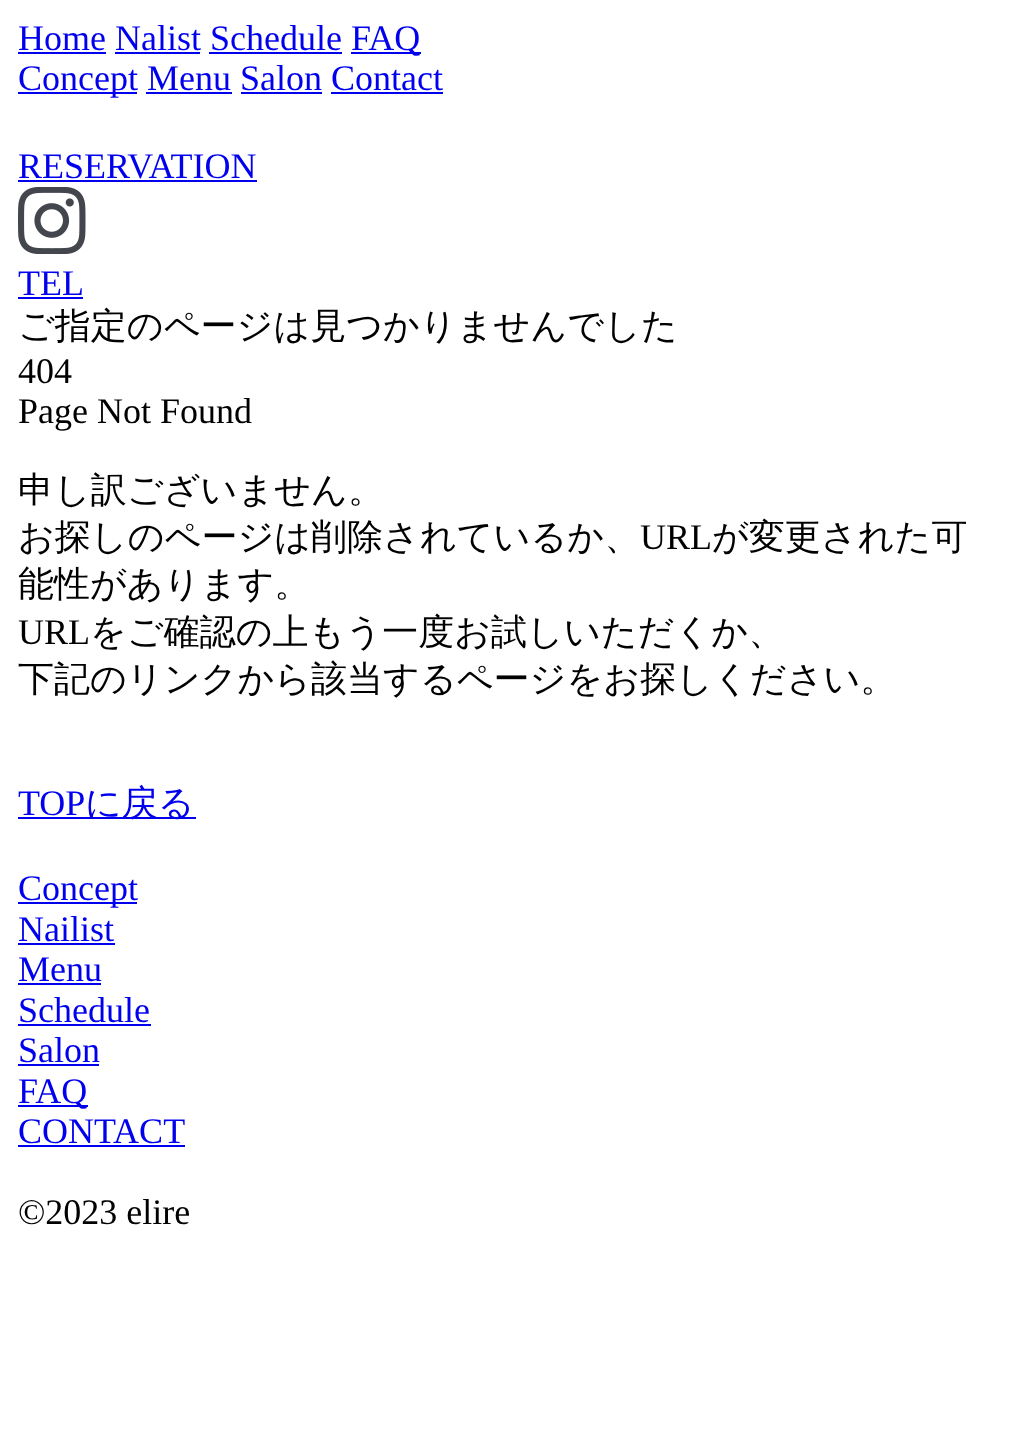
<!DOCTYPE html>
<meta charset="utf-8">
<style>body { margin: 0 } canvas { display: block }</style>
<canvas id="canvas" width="1009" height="1444"></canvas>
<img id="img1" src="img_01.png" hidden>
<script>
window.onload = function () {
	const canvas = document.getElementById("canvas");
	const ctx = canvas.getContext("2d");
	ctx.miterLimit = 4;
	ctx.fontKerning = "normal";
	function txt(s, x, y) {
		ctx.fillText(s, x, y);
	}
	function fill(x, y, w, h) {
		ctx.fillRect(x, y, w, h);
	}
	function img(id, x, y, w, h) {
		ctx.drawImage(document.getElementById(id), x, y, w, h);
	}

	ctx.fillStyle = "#FFFFFF";
	fill(0, 0, 1009, 1444);
	ctx.fillStyle = "#0000EE";
	fill(18, 52, 88, 2);
	fill(351, 52, 70, 2);
	fill(115, 52, 85, 2);
	fill(209, 52, 133, 2);
	fill(18, 92, 119, 2);
	fill(146, 92, 86, 2);
	fill(241, 92, 81, 2);
	fill(331, 92, 112, 2);
	fill(18, 180, 239, 2);
	img("img1", 18, 187, 68, 67);
	fill(18, 297, 65, 2);
	fill(18, 817, 178, 2);
	fill(18, 902, 119, 2);
	fill(18, 943, 97, 2);
	fill(18, 983, 83, 2);
	fill(18, 1024, 133, 2);
	fill(18, 1064, 81, 2);
	fill(18, 1105, 70, 2);
	fill(18, 1145, 167, 2);
	ctx.font = "36px Liberation Serif";
	txt("Home Nalist Schedule", 18, 50);
	txt("FAQ", 351, 50);
	txt("Concept Menu Salon Contact", 18, 90);
	txt("RESERVATION", 18, 178);
	txt("TEL", 18, 295);
	ctx.font = "500 36px WenQuanYi Zen Hei";
	ctx.fillStyle = "#000000";
	txt("ご指定のページは見つかりませんでした", 18, 338);
	ctx.font = "36px Liberation Serif";
	txt("404", 18, 383);
	txt("Page Not Found", 18, 423);
	ctx.font = "500 36px WenQuanYi Zen Hei";
	txt("申し訳ございません。", 18, 502);
	txt("お探しのページは削除されているか、", 18, 549);
	ctx.font = "36px Liberation Serif";
	txt("URL", 640, 549);
	ctx.font = "500 36px WenQuanYi Zen Hei";
	txt("が変更された可", 712, 549);
	txt("能性があります。", 18, 596);
	ctx.font = "36px Liberation Serif";
	txt("URL", 18, 644);
	ctx.font = "500 36px WenQuanYi Zen Hei";
	txt("をご確認の上もう一度お試しいただくか、", 90, 644);
	txt("下記のリンクから該当するページをお探しください。", 18, 691);
	ctx.font = "36px Liberation Serif";
	ctx.fillStyle = "#0000EE";
	txt("TOP", 18, 815);
	ctx.font = "500 36px WenQuanYi Zen Hei";
	txt("に戻る", 85, 815);
	ctx.font = "36px Liberation Serif";
	txt("Concept", 18, 900);
	txt("Nailist", 18, 941);
	txt("Menu", 18, 981);
	txt("Schedule", 18, 1022);
	txt("Salon", 18, 1062);
	txt("FAQ", 18, 1103);
	txt("CONTACT", 18, 1143);
	ctx.fillStyle = "#000000";
	txt("©︎2023 elire", 18, 1224);
};
</script>
